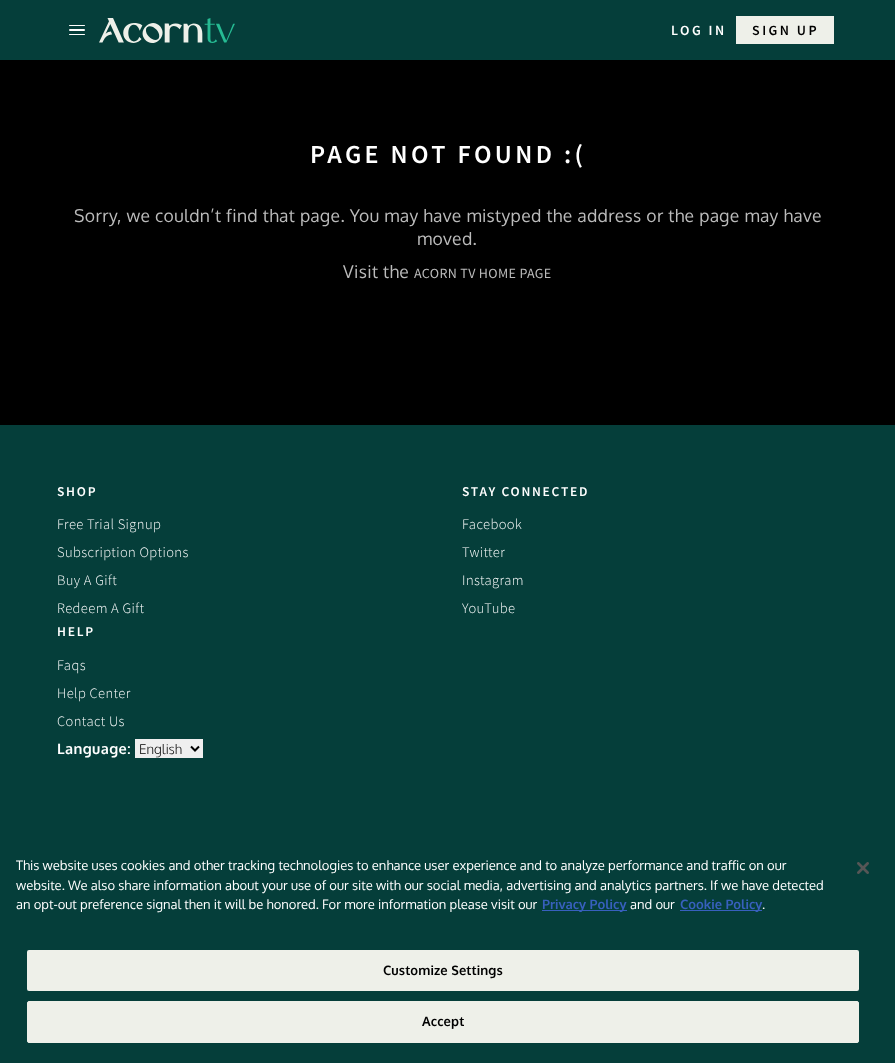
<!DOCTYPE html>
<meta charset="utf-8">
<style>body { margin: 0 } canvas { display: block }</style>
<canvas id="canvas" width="895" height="1063"></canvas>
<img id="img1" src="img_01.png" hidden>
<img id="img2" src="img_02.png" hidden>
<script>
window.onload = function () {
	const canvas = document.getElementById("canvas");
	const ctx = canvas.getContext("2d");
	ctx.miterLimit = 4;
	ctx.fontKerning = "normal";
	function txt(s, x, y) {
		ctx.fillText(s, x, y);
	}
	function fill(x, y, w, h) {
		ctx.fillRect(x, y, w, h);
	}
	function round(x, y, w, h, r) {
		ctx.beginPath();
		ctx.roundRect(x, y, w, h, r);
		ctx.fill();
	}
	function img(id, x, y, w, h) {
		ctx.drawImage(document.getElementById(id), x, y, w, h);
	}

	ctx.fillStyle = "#000000";
	fill(0, 0, 895, 1063);
	ctx.fillStyle = "#053E3A";
	fill(0, 0, 895, 60);
	ctx.fillStyle = "#FFFFFF";
	round(69, 25, 16, 1, 0.5);
	round(69, 29, 16, 2, 1);
	round(69, 34, 16, 1, 0.5);
	img("img1", 99, 18, 136, 25);
	ctx.fillStyle = "#EEF0E9";
	fill(736, 16, 98, 28);
	ctx.fillStyle = "#053E3A";
	fill(0, 425, 895, 638);
	ctx.fillStyle = "#EFEFEF";
	fill(135, 739, 68, 19);
	ctx.beginPath();
	ctx.moveTo(191, 746.5);
	ctx.lineTo(195, 750.5);
	ctx.lineTo(199, 746.5);
	ctx.strokeStyle = "#000000";
	ctx.lineWidth = 2;
	ctx.stroke();
	ctx.fillStyle = "#3860BE";
	fill(542, 910, 85, 1);
	fill(680, 910, 82, 1);
	ctx.fillStyle = "#EEF0E9";
	round(27, 950, 832, 41, 2);
	ctx.beginPath();
	ctx.roundRect(27.5, 1001.5, 831, 41, 1.5);
	ctx.fill();
	ctx.strokeStyle = "#EEF0E9";
	ctx.lineWidth = 1;
	ctx.stroke();
	img("img2", 857, 862, 12, 12);
	ctx.letterSpacing = "2.5px";
	ctx.font = "600 14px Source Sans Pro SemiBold";
	ctx.fillStyle = "#FFFFFF";
	txt("LOG IN", 671, 35);
	ctx.fillStyle = "#000000";
	txt("SIGN UP", 752, 35);
	ctx.letterSpacing = "3.4px";
	ctx.font = "600 26px Source Sans Pro SemiBold";
	ctx.fillStyle = "#FFFFFF";
	txt("PAGE NOT FOUND :(", 310, 163);
	ctx.letterSpacing = "0.35px";
	ctx.font = "17.5px Oxygen";
	ctx.fillStyle = "#BBBBBB";
	txt("Sorry, we couldn’t find that page. You may have mistyped the address or the page may have", 74, 222);
	txt("moved.", 417, 245);
	txt("Visit the", 343, 278);
	ctx.font = "14px Source Sans Pro";
	txt("ACORN TV HOME PAGE", 414, 278);
	ctx.letterSpacing = "1.75px";
	ctx.font = "600 13.5px Source Sans Pro SemiBold";
	ctx.fillStyle = "#FFFFFF";
	txt("SHOP", 57, 496);
	ctx.letterSpacing = "0.4px";
	ctx.font = "300 14.5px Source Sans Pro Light";
	txt("Free Trial Signup", 57, 529);
	txt("Subscription Options", 57, 557);
	txt("Buy A Gift", 57, 585);
	txt("Redeem A Gift", 57, 613);
	ctx.letterSpacing = "1.75px";
	ctx.font = "600 13.5px Source Sans Pro SemiBold";
	txt("STAY CONNECTED", 462, 496);
	ctx.letterSpacing = "0.4px";
	ctx.font = "300 14.5px Source Sans Pro Light";
	txt("Facebook", 462, 529);
	txt("Twitter", 462, 557);
	txt("Instagram", 462, 585);
	txt("YouTube", 462, 613);
	ctx.letterSpacing = "1.75px";
	ctx.font = "600 13.5px Source Sans Pro SemiBold";
	txt("HELP", 57, 636);
	ctx.letterSpacing = "0.4px";
	ctx.font = "300 14.5px Source Sans Pro Light";
	txt("Faqs", 57, 670);
	txt("Help Center", 57, 698);
	txt("Contact Us", 57, 726);
	ctx.font = "bold 14.5px Oxygen";
	txt("Language:", 57, 754);
	ctx.letterSpacing = "0px";
	ctx.font = "300 13.5px Oxygen";
	ctx.fillStyle = "#000000";
	txt("English", 139, 754);
	ctx.font = "13px Oxygen";
	ctx.fillStyle = "#FFFFFF";
	txt("This website uses cookies and other tracking technologies to enhance user experience and to analyze performance and traffic on our", 16, 870);
	txt("website. We also share information about your use of our site with our social media, advertising and analytics partners. If we have detected", 16, 890);
	txt("an opt-out preference signal then it will be honored. For more information please visit our", 16, 909);
	ctx.font = "bold 13px Oxygen";
	ctx.fillStyle = "#3860BE";
	txt("Privacy Policy", 542, 909);
	ctx.font = "13px Oxygen";
	ctx.fillStyle = "#FFFFFF";
	txt("and our", 630, 909);
	ctx.font = "bold 13px Oxygen";
	ctx.fillStyle = "#3860BE";
	txt("Cookie Policy", 680, 909);
	ctx.font = "13px Oxygen";
	ctx.fillStyle = "#FFFFFF";
	txt(".", 762, 909);
	ctx.letterSpacing = "0.1px";
	ctx.font = "bold 13px Oxygen";
	ctx.fillStyle = "#000000";
	txt("Customize Settings", 383, 975);
	txt("Accept", 422, 1026);
};
</script>
